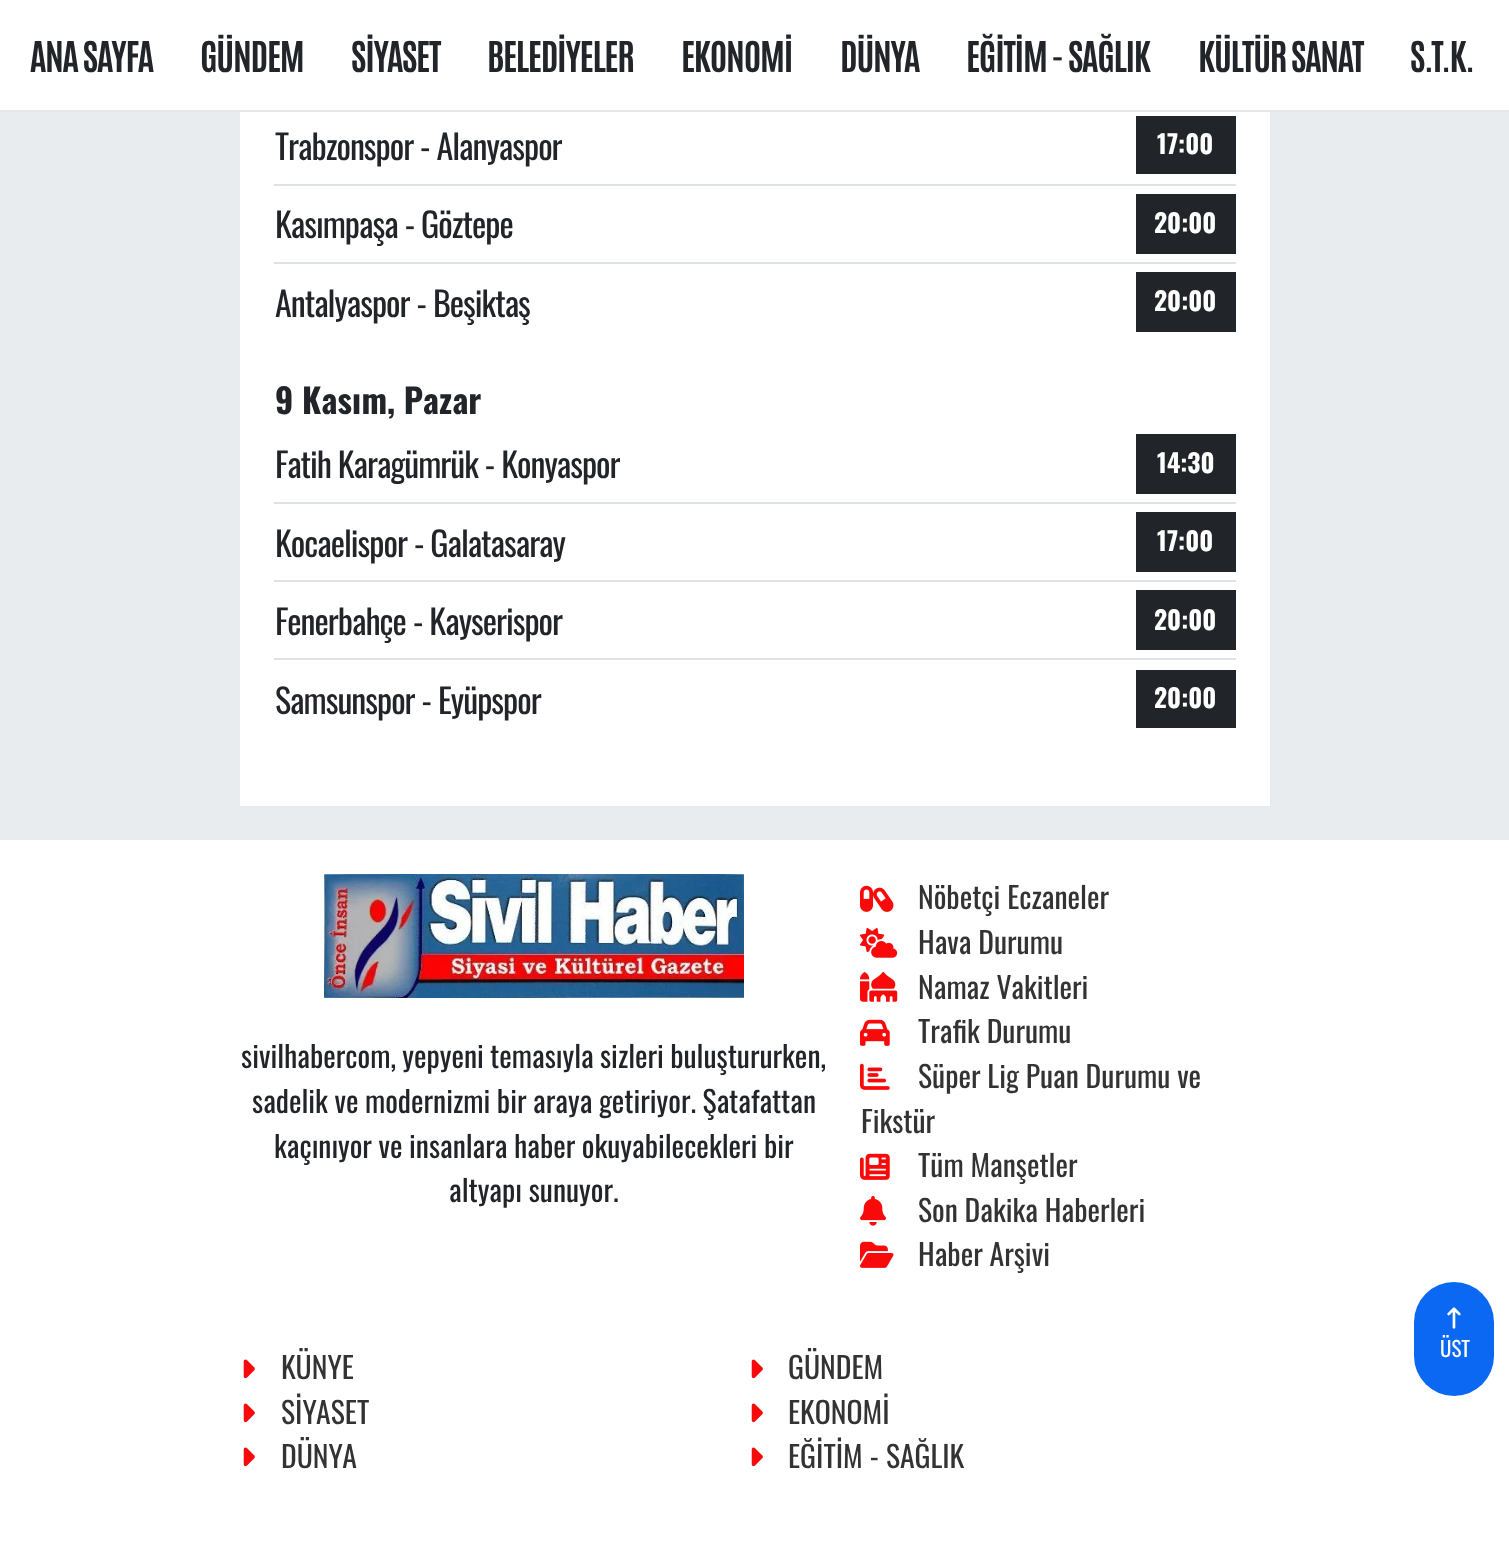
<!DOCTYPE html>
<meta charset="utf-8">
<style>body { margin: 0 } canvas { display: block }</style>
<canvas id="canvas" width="1509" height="1550"></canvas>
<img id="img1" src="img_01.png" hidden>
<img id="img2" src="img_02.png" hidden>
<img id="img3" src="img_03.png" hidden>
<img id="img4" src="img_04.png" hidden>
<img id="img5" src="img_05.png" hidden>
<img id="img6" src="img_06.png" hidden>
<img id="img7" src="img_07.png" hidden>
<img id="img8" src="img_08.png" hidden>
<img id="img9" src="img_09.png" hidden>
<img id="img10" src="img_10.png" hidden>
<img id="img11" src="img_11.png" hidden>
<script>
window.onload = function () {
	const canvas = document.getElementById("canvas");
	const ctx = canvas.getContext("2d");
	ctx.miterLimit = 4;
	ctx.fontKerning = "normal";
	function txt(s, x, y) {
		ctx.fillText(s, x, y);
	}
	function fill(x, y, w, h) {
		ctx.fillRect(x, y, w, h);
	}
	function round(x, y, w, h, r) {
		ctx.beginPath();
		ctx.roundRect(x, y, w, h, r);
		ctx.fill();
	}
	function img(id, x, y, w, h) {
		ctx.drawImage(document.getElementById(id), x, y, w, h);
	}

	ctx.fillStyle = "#E9ECEF";
	fill(0, 0, 1509, 1550);
	ctx.fillStyle = "#FFFFFF";
	fill(0, 0, 1509, 110);
	ctx.fillStyle = "#E6E6E6";
	fill(0, 110, 1509, 2);
	ctx.fillStyle = "#FFFFFF";
	fill(240, 112, 1030, 694);
	ctx.fillStyle = "#DEE2E6";
	fill(274, 184, 962, 2);
	ctx.fillStyle = "#212529";
	fill(1136, 116, 100, 58);
	ctx.fillStyle = "#DEE2E6";
	fill(274, 262, 962, 2);
	ctx.fillStyle = "#212529";
	fill(1136, 194, 100, 60);
	fill(1136, 272, 100, 60);
	ctx.fillStyle = "#DEE2E6";
	fill(274, 502, 962, 2);
	ctx.fillStyle = "#212529";
	fill(1136, 434, 100, 60);
	ctx.fillStyle = "#DEE2E6";
	fill(274, 580, 962, 2);
	ctx.fillStyle = "#212529";
	fill(1136, 512, 100, 60);
	ctx.fillStyle = "#DEE2E6";
	fill(274, 658, 962, 2);
	ctx.fillStyle = "#212529";
	fill(1136, 590, 100, 60);
	fill(1136, 670, 100, 58);
	ctx.fillStyle = "#FFFFFF";
	fill(0, 840, 1509, 710);
	img("img1", 324, 874, 420, 124);
	img("img2", 860, 885, 34, 27);
	img("img3", 860, 928, 38, 30);
	img("img4", 860, 972, 38, 30);
	img("img5", 860, 1019, 30, 27);
	img("img6", 860, 1063, 30, 27);
	img("img7", 860, 1153, 30, 27);
	img("img8", 860, 1196, 26, 30);
	img("img9", 860, 1241, 34, 27);
	img("img10", 243, 1359, 12, 20);
	img("img10", 751, 1359, 12, 20);
	img("img10", 243, 1403, 12, 20);
	img("img10", 751, 1403, 12, 20);
	img("img10", 243, 1447, 12, 20);
	img("img10", 751, 1447, 12, 20);
	ctx.fillStyle = "#0A68F2";
	round(1414, 1282, 80, 114, 40);
	img("img11", 1447, 1307, 14, 22);
	ctx.letterSpacing = "-1.25px";
	ctx.font = "bold 36px Antonio";
	ctx.fillStyle = "#212529";
	txt("ANA SAYFA", 30, 72);
	txt("GÜNDEM", 200, 72);
	txt("SİYASET", 351, 72);
	txt("BELEDİYELER", 487, 72);
	txt("EKONOMİ", 681, 72);
	txt("DÜNYA", 840, 72);
	txt("EĞİTİM - SAĞLIK", 966, 72);
	txt("KÜLTÜR SANAT", 1198, 72);
	txt("S.T.K.", 1410, 72);
	ctx.letterSpacing = "-1px";
	ctx.font = "34px Oswald";
	txt("Trabzonspor - Alanyaspor", 275, 160);
	ctx.letterSpacing = "0px";
	ctx.font = "bold 25.5px Oswald";
	ctx.fillStyle = "#FFFFFF";
	txt("17:00", 1157, 154);
	ctx.letterSpacing = "-1px";
	ctx.font = "34px Oswald";
	ctx.fillStyle = "#212529";
	txt("Kasımpaşa - Göztepe", 275, 238);
	ctx.letterSpacing = "0px";
	ctx.font = "bold 25.5px Oswald";
	ctx.fillStyle = "#FFFFFF";
	txt("20:00", 1154, 233);
	ctx.letterSpacing = "-1px";
	ctx.font = "34px Oswald";
	ctx.fillStyle = "#212529";
	txt("Antalyaspor - Beşiktaş", 275, 317);
	ctx.letterSpacing = "0px";
	ctx.font = "bold 25.5px Oswald";
	ctx.fillStyle = "#FFFFFF";
	txt("20:00", 1154, 311);
	ctx.font = "bold 34px Oswald";
	ctx.fillStyle = "#212529";
	txt("9 Kasım, Pazar", 275, 414);
	ctx.letterSpacing = "-1px";
	ctx.font = "34px Oswald";
	txt("Fatih Karagümrük - Konyaspor", 275, 478);
	ctx.letterSpacing = "0px";
	ctx.font = "bold 25.5px Oswald";
	ctx.fillStyle = "#FFFFFF";
	txt("14:30", 1157, 473);
	ctx.letterSpacing = "-1px";
	ctx.font = "34px Oswald";
	ctx.fillStyle = "#212529";
	txt("Kocaelispor - Galatasaray", 275, 557);
	ctx.letterSpacing = "0px";
	ctx.font = "bold 25.5px Oswald";
	ctx.fillStyle = "#FFFFFF";
	txt("17:00", 1157, 551);
	ctx.letterSpacing = "-1px";
	ctx.font = "34px Oswald";
	ctx.fillStyle = "#212529";
	txt("Fenerbahçe - Kayserispor", 275, 635);
	ctx.letterSpacing = "0px";
	ctx.font = "bold 25.5px Oswald";
	ctx.fillStyle = "#FFFFFF";
	txt("20:00", 1154, 630);
	ctx.letterSpacing = "-1px";
	ctx.font = "34px Oswald";
	ctx.fillStyle = "#212529";
	txt("Samsunspor - Eyüpspor", 275, 714);
	ctx.letterSpacing = "0px";
	ctx.font = "bold 25.5px Oswald";
	ctx.fillStyle = "#FFFFFF";
	txt("20:00", 1154, 708);
	ctx.wordSpacing = "-0.5px";
	ctx.font = "29.75px Oswald";
	ctx.fillStyle = "#212529";
	txt("sivilhabercom, yepyeni temasıyla sizleri buluştururken,", 241, 1068);
	ctx.wordSpacing = "-0.25px";
	txt("sadelik ve modernizmi bir araya getiriyor. Şatafattan", 252, 1113);
	txt("kaçınıyor ve insanlara haber okuyabilecekleri bir", 274, 1158);
	ctx.wordSpacing = "0px";
	txt("altyapı sunuyor.", 449, 1202);
	ctx.fillStyle = "#333333";
	txt("Nöbetçi Eczaneler", 918, 909);
	txt("Hava Durumu", 918, 954);
	txt("Namaz Vakitleri", 918, 999);
	txt("Trafik Durumu", 918, 1043);
	txt("Süper Lig Puan Durumu ve", 918, 1088);
	txt("Fikstür", 861, 1133);
	txt("Tüm Manşetler", 918, 1177);
	txt("Son Dakika Haberleri", 918, 1222);
	txt("Haber Arşivi", 918, 1266);
	txt("KÜNYE", 281, 1379);
	txt("GÜNDEM", 788, 1379);
	txt("SİYASET", 281, 1424);
	txt("EKONOMİ", 788, 1424);
	txt("DÜNYA", 281, 1468);
	txt("EĞİTİM - SAĞLIK", 788, 1468);
	ctx.font = "21px Oswald";
	ctx.fillStyle = "#FFFFFF";
	txt("ÜST", 1440, 1357);
};
</script>
